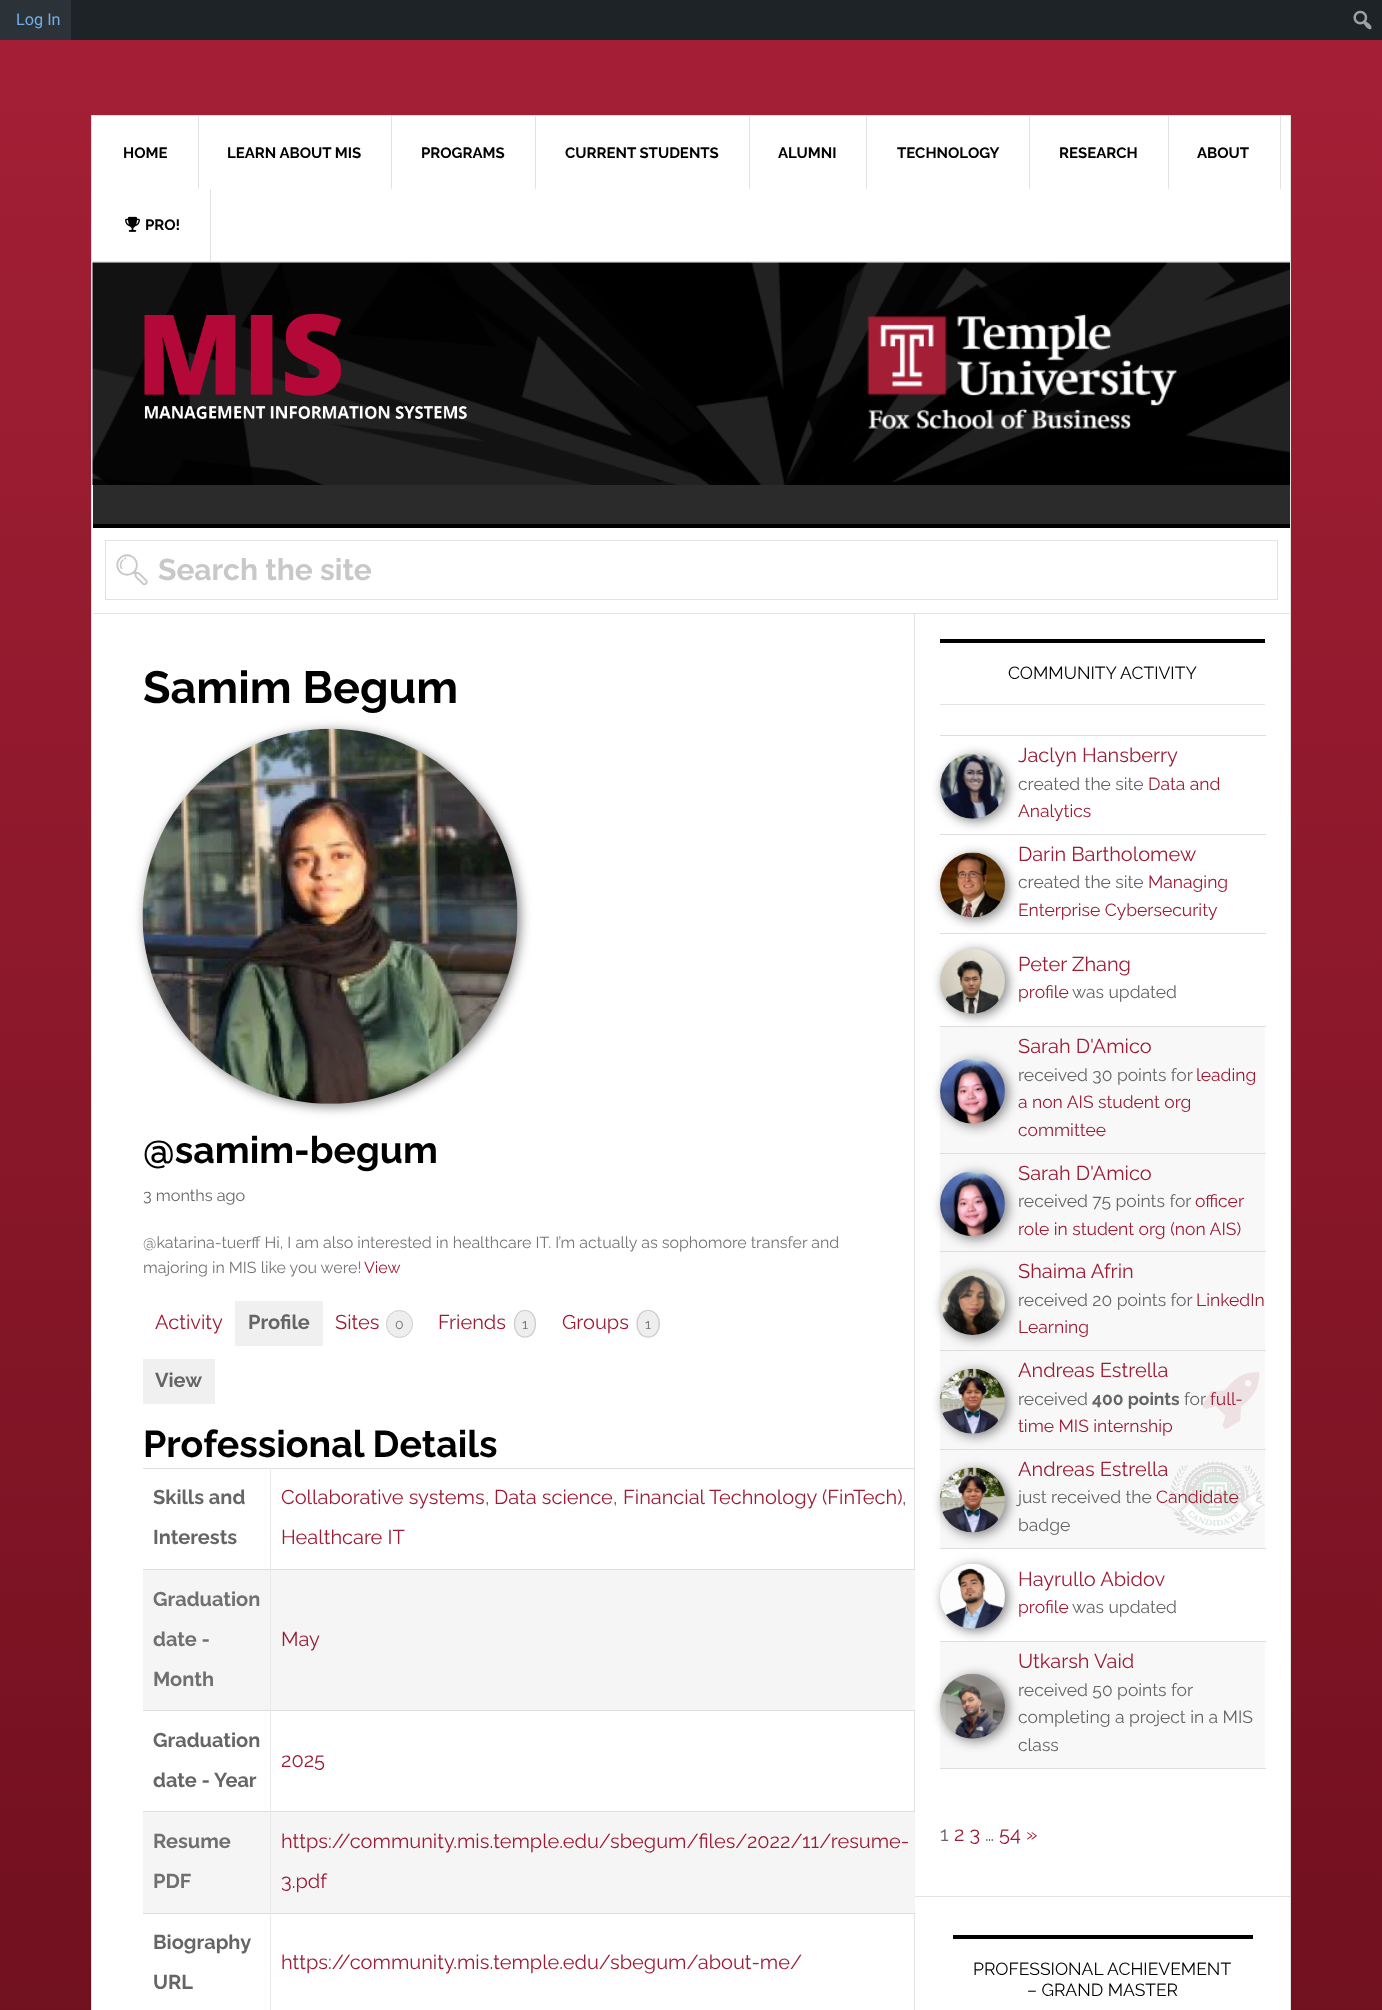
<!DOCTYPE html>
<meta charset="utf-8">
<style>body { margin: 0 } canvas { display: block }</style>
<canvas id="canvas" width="1382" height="2010"></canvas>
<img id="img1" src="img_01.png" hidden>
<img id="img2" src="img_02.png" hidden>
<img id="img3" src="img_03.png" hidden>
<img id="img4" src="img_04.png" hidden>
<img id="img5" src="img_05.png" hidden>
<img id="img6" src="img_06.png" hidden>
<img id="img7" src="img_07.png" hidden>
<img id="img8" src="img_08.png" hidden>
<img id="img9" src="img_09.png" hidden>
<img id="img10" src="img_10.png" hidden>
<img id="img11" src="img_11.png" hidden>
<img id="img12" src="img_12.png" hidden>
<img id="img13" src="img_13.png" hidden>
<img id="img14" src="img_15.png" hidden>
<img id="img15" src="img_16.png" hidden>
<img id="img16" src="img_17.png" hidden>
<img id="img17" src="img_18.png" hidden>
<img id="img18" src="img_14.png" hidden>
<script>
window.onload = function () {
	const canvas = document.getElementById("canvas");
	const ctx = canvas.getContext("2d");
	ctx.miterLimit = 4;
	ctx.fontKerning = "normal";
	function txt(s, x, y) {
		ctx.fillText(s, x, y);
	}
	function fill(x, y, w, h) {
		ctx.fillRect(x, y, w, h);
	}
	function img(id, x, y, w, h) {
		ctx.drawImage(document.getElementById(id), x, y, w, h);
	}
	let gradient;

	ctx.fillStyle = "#FFFFFF";
	fill(0, 0, 1382, 2010);
	gradient = ctx.createLinearGradient(691, 40, 691, 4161);
	gradient.addColorStop(0, "#A41F35");
	gradient.addColorStop(1, "#3A0008");
	ctx.fillStyle = gradient;
	fill(0, 40, 1382, 1970);
	ctx.fillStyle = "#1D2327";
	fill(71, 0, 1311, 40);
	ctx.fillStyle = "#2C3338";
	fill(0, 0, 71, 40);
	img("img1", 1353, 10, 19, 20);
	ctx.fillStyle = "#FFFFFF";
	ctx.beginPath();
	ctx.rect(91.5, 115.5, 1199, 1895);
	ctx.fill();
	ctx.strokeStyle = "#E3E3E3";
	ctx.stroke();
	ctx.fillStyle = "#E3E3E3";
	fill(93, 261, 1197, 1);
	fill(198, 116, 1, 73);
	fill(391, 116, 1, 73);
	fill(535, 116, 1, 73);
	fill(749, 116, 1, 73);
	fill(866, 116, 1, 73);
	fill(1029, 116, 1, 73);
	fill(1168, 116, 1, 73);
	fill(1280, 116, 1, 73);
	fill(210, 189, 1, 72);
	img("img2", 125, 216, 15, 16);
	ctx.fillStyle = "#2B2B2B";
	fill(93, 485, 1197, 39);
	img("img3", 92, 262, 1198, 223);
	ctx.fillStyle = "#000000";
	fill(93, 524, 1197, 4);
	img("img4", 144, 313, 323, 106);
	img("img5", 867, 314, 311, 115);
	ctx.fillStyle = "#E3E3E3";
	fill(93, 613, 1197, 1);
	ctx.strokeRect(105.5, 540.5, 1172, 59);
	fill(914, 614, 1, 1396);
	ctx.fillStyle = "#808080";
	ctx.filter = "blur(6px)";
	ctx.beginPath();
	ctx.roundRect(145, 731, 375, 375, 187.5);
	ctx.fill();
	ctx.filter = "none";
	img("img6", 142, 728, 376, 376);
	ctx.fillStyle = "#F0F0F0";
	fill(235, 1301, 88, 45);
	ctx.fillStyle = "#EEEEEE";
	ctx.beginPath();
	ctx.roundRect(386.5, 1310.5, 26, 27, 13);
	ctx.fill();
	ctx.strokeStyle = "#CCCCCC";
	ctx.stroke();
	ctx.beginPath();
	ctx.ellipse(525, 1324, 11, 14, 0, 0, Math.PI * 2);
	ctx.fill();
	ctx.beginPath();
	ctx.moveTo(525, 1310.5);
	ctx.bezierCurveTo(539, 1310.5, 539, 1337, 525, 1337);
	ctx.bezierCurveTo(511, 1337, 511, 1310.5, 525, 1310.5);
	ctx.closePath();
	ctx.lineWidth = 1.2;
	ctx.stroke();
	ctx.beginPath();
	ctx.ellipse(648, 1324, 12, 14, 0, 0, Math.PI * 2);
	ctx.fill();
	ctx.beginPath();
	ctx.moveTo(648, 1310.5);
	ctx.bezierCurveTo(663, 1310.5, 663, 1337, 648, 1337);
	ctx.bezierCurveTo(633.5, 1337, 633.5, 1310.5, 648, 1310.5);
	ctx.closePath();
	ctx.stroke();
	ctx.fillStyle = "#F0F0F0";
	fill(143, 1359, 72, 45);
	ctx.fillStyle = "#DDDDDD";
	fill(143, 1468, 776, 1);
	fill(143, 1569, 776, 1);
	fill(143, 1710, 776, 1);
	fill(143, 1811, 776, 1);
	fill(143, 1913, 776, 1);
	ctx.fillStyle = "#EAEAEA";
	fill(270, 1913, 1, 97);
	fill(270, 1811, 1, 103);
	fill(270, 1710, 1, 103);
	fill(270, 1569, 1, 142);
	fill(270, 1468, 1, 102);
	ctx.fillStyle = "#F5F5F5";
	fill(143, 1570, 127, 140);
	fill(271, 1570, 644, 140);
	fill(143, 1812, 127, 101);
	fill(271, 1812, 644, 101);
	ctx.fillStyle = "#FFFFFF";
	fill(915, 1468, 4, 344);
	ctx.fillStyle = "#E3E3E3";
	fill(915, 1896, 375, 1);
	ctx.fillStyle = "#000000";
	fill(940, 639, 325, 4);
	ctx.fillStyle = "#E3E3E3";
	fill(940, 704, 325, 1);
	ctx.fillStyle = "#DDDDDD";
	fill(940, 1768, 326, 1);
	fill(940, 834, 326, 1);
	ctx.fillStyle = "#808080";
	ctx.filter = "blur(6px)";
	ctx.beginPath();
	ctx.roundRect(943, 756, 65, 65, 32.5);
	ctx.fill();
	ctx.filter = "none";
	img("img7", 940, 754, 65, 65);
	ctx.fillStyle = "#DDDDDD";
	fill(940, 735, 326, 1);
	fill(940, 933, 326, 1);
	ctx.fillStyle = "#808080";
	ctx.filter = "blur(6px)";
	ctx.beginPath();
	ctx.roundRect(943, 855, 65, 65, 32.5);
	ctx.fill();
	ctx.filter = "none";
	img("img8", 940, 852, 65, 66);
	ctx.fillStyle = "#F8F8F8";
	fill(940, 1027, 325, 126);
	ctx.fillStyle = "#DDDDDD";
	fill(940, 1026, 326, 1);
	ctx.fillStyle = "#808080";
	ctx.filter = "blur(6px)";
	ctx.beginPath();
	ctx.roundRect(943, 951, 65, 65, 32.5);
	ctx.fill();
	ctx.filter = "none";
	img("img9", 940, 949, 65, 65);
	ctx.filter = "blur(6px)";
	ctx.beginPath();
	ctx.roundRect(943, 1061, 65, 65, 32.5);
	ctx.fill();
	ctx.filter = "none";
	img("img10", 940, 1059, 65, 65);
	ctx.fillStyle = "#F8F8F8";
	fill(940, 1154, 325, 97);
	fill(940, 1252, 325, 98);
	ctx.fillStyle = "#DDDDDD";
	fill(940, 1251, 326, 1);
	ctx.fillStyle = "#808080";
	ctx.filter = "blur(6px)";
	ctx.beginPath();
	ctx.roundRect(943, 1174, 65, 65, 32.5);
	ctx.fill();
	ctx.filter = "none";
	img("img11", 940, 1171, 65, 65);
	ctx.fillStyle = "#DDDDDD";
	fill(940, 1153, 326, 1);
	ctx.fillStyle = "#F8F8F8";
	fill(940, 1351, 325, 98);
	ctx.fillStyle = "#DDDDDD";
	fill(940, 1350, 326, 1);
	ctx.fillStyle = "#808080";
	ctx.filter = "blur(6px)";
	ctx.beginPath();
	ctx.roundRect(943, 1273, 65, 65, 32.5);
	ctx.fill();
	ctx.filter = "none";
	img("img12", 940, 1270, 65, 65);
	ctx.fillStyle = "#F8F8F8";
	fill(940, 1450, 325, 98);
	ctx.fillStyle = "#DDDDDD";
	fill(940, 1449, 326, 1);
	ctx.fillStyle = "#808080";
	ctx.filter = "blur(6px)";
	ctx.beginPath();
	ctx.roundRect(943, 1371, 65, 65, 32.5);
	ctx.fill();
	ctx.filter = "none";
	img("img13", 940, 1368, 65, 66);
	ctx.fillStyle = "#DDDDDD";
	fill(940, 1548, 326, 1);
	ctx.fillStyle = "#808080";
	ctx.filter = "blur(6px)";
	ctx.beginPath();
	ctx.roundRect(943, 1470, 65, 65, 32.5);
	ctx.fill();
	ctx.filter = "none";
	img("img14", 940, 1467, 65, 66);
	img("img15", 1165, 1461, 100, 74);
	ctx.fillStyle = "#F8F8F8";
	fill(940, 1642, 325, 126);
	ctx.fillStyle = "#DDDDDD";
	fill(940, 1641, 326, 1);
	ctx.fillStyle = "#808080";
	ctx.filter = "blur(6px)";
	ctx.beginPath();
	ctx.roundRect(943, 1566, 65, 65, 32.5);
	ctx.fill();
	ctx.filter = "none";
	img("img16", 940, 1564, 65, 65);
	ctx.filter = "blur(6px)";
	ctx.beginPath();
	ctx.roundRect(943, 1676, 65, 65, 32.5);
	ctx.fill();
	ctx.filter = "none";
	img("img17", 940, 1673, 65, 66);
	ctx.fillStyle = "#FFFFFF";
	fill(915, 1913, 4, 1);
	ctx.fillStyle = "#000000";
	fill(953, 1935, 300, 4);
	ctx.font = "16.25px Roboto";
	ctx.fillStyle = "#72AEE6";
	txt("Log In", 16, 25);
	ctx.font = "bold 15px Raleway";
	ctx.fillStyle = "#000000";
	txt("HOME", 123, 158);
	txt("LEARN ABOUT MIS", 227, 158);
	txt("PROGRAMS", 421, 158);
	txt("CURRENT STUDENTS", 565, 158);
	txt("ALUMNI", 778, 158);
	txt("TECHNOLOGY", 897, 158);
	txt("RESEARCH", 1059, 158);
	txt("ABOUT", 1197, 158);
	txt("PRO!", 145, 230);
	ctx.font = "bold 30px Noto Emoji";
	ctx.fillStyle = "#C8C8C8";
	txt("🔍︎", 113, 580);
	ctx.font = "bold 30px Raleway";
	txt("Search the site", 158, 580);
	ctx.font = "bold 45px Raleway";
	ctx.fillStyle = "#000000";
	txt("Samim Begum", 143, 703);
	ctx.font = "bold 37.5px Raleway";
	txt("@samim-begum", 143, 1163);
	ctx.font = "16.25px Raleway";
	ctx.fillStyle = "#656565";
	txt("3 months ago", 143, 1201);
	ctx.font = "16px Raleway";
	ctx.fillStyle = "#767676";
	txt("@katarina-tuerff Hi, I am also interested in healthcare IT. I’m actually as sophomore transfer and", 143, 1248);
	txt("majoring in MIS like you were!", 143, 1273);
	ctx.fillStyle = "#9E1B34";
	txt("View", 364, 1273);
	ctx.font = "20px Raleway";
	txt("Activity", 155, 1329);
	ctx.font = "bold 20px Raleway";
	ctx.fillStyle = "#656565";
	txt("Profile", 248, 1329);
	ctx.font = "20px Raleway";
	ctx.fillStyle = "#9E1B34";
	txt("Sites", 335, 1329);
	ctx.font = "14px Raleway";
	ctx.fillStyle = "#707070";
	txt("0", 395, 1329);
	ctx.font = "20px Raleway";
	ctx.fillStyle = "#9E1B34";
	txt("Friends", 438, 1329);
	ctx.font = "14px Raleway";
	ctx.fillStyle = "#707070";
	txt("1", 522, 1329);
	ctx.font = "20px Raleway";
	ctx.fillStyle = "#9E1B34";
	txt("Groups", 562, 1329);
	ctx.font = "14px Raleway";
	ctx.fillStyle = "#707070";
	txt("1", 645, 1329);
	ctx.font = "bold 20px Raleway";
	ctx.fillStyle = "#656565";
	txt("View", 155, 1387);
	ctx.font = "bold 37.5px Raleway";
	ctx.fillStyle = "#000000";
	txt("Professional Details", 143, 1457);
	ctx.font = "bold 20px Raleway";
	ctx.fillStyle = "#656565";
	txt("Skills and", 153, 1504);
	txt("Interests", 153, 1544);
	ctx.font = "20px Raleway";
	ctx.fillStyle = "#9E1B34";
	txt("Collaborative systems", 281, 1504);
	ctx.fillStyle = "#656565";
	txt(",", 485, 1504);
	ctx.fillStyle = "#9E1B34";
	txt("Data science", 494, 1504);
	ctx.fillStyle = "#656565";
	txt(",", 613, 1504);
	ctx.fillStyle = "#9E1B34";
	txt("Financial Technology (FinTech)", 623, 1504);
	ctx.fillStyle = "#656565";
	txt(",", 902, 1504);
	ctx.fillStyle = "#9E1B34";
	txt("Healthcare IT", 281, 1544);
	ctx.font = "bold 20px Raleway";
	ctx.fillStyle = "#707070";
	txt("Graduation", 153, 1606);
	txt("date -", 153, 1646);
	txt("Month", 153, 1686);
	ctx.font = "20px Raleway";
	ctx.fillStyle = "#9E1B34";
	txt("May", 281, 1646);
	ctx.font = "bold 20px Raleway";
	ctx.fillStyle = "#656565";
	txt("Graduation", 153, 1747);
	txt("date - Year", 153, 1787);
	ctx.font = "20px Raleway";
	ctx.fillStyle = "#9E1B34";
	txt("2025", 281, 1767);
	ctx.font = "bold 20px Raleway";
	ctx.fillStyle = "#707070";
	txt("Resume", 153, 1848);
	txt("PDF", 153, 1888);
	ctx.font = "20px Raleway";
	ctx.fillStyle = "#9E1B34";
	txt("https://community.mis.temple.edu/sbegum/files/2022/11/resume-", 281, 1848);
	txt("3.pdf", 281, 1888);
	ctx.font = "bold 20px Raleway";
	ctx.fillStyle = "#656565";
	txt("Biography", 153, 1949);
	txt("URL", 153, 1989);
	ctx.font = "20px Raleway";
	ctx.fillStyle = "#9E1B34";
	txt("https://community.mis.temple.edu/sbegum/about-me/", 281, 1969);
	ctx.font = "17.5px Raleway";
	ctx.fillStyle = "#000000";
	txt("COMMUNITY ACTIVITY", 1008, 679);
	ctx.font = "20px Raleway";
	ctx.fillStyle = "#9E1B34";
	txt("Jaclyn Hansberry", 1018, 762);
	ctx.font = "17.5px Raleway";
	ctx.fillStyle = "#656565";
	txt("created the site", 1018, 790);
	ctx.fillStyle = "#9E1B34";
	txt("Data and", 1148, 790);
	txt("Analytics", 1018, 817);
	ctx.font = "20px Raleway";
	txt("Darin Bartholomew", 1018, 861);
	ctx.font = "17.5px Raleway";
	ctx.fillStyle = "#656565";
	txt("created the site", 1018, 888);
	ctx.fillStyle = "#9E1B34";
	txt("Managing", 1148, 888);
	txt("Enterprise Cybersecurity", 1018, 916);
	ctx.font = "20px Raleway";
	txt("Peter Zhang", 1018, 971);
	ctx.font = "17.5px Raleway";
	txt("profile", 1018, 998);
	ctx.fillStyle = "#656565";
	txt("was updated", 1072, 998);
	ctx.font = "20px Raleway";
	ctx.fillStyle = "#9E1B34";
	txt("Sarah D'Amico", 1018, 1053);
	ctx.font = "17.5px Raleway";
	ctx.fillStyle = "#656565";
	txt("received 30 points for", 1018, 1081);
	ctx.fillStyle = "#9E1B34";
	txt("leading", 1196, 1081);
	txt("a non AIS student org", 1018, 1108);
	txt("committee", 1018, 1136);
	ctx.font = "20px Raleway";
	txt("Sarah D'Amico", 1018, 1180);
	ctx.font = "17.5px Raleway";
	ctx.fillStyle = "#656565";
	txt("received 75 points for", 1018, 1207);
	ctx.fillStyle = "#9E1B34";
	txt("officer", 1195, 1207);
	txt("role in student org (non AIS)", 1018, 1235);
	ctx.font = "20px Raleway";
	txt("Shaima Afrin", 1018, 1278);
	ctx.font = "17.5px Raleway";
	ctx.fillStyle = "#656565";
	txt("received 20 points for", 1018, 1306);
	ctx.fillStyle = "#9E1B34";
	txt("LinkedIn", 1196, 1306);
	txt("Learning", 1018, 1333);
	ctx.font = "20px Raleway";
	txt("Andreas Estrella", 1018, 1377);
	ctx.font = "17.5px Raleway";
	ctx.fillStyle = "#656565";
	txt("received", 1018, 1405);
	ctx.font = "bold 17.5px Raleway";
	txt("400 points", 1092, 1405);
	ctx.font = "17.5px Raleway";
	txt("for", 1184, 1405);
	ctx.fillStyle = "#9E1B34";
	txt("full-", 1210, 1405);
	img("img18", 1202, 1372, 58, 57);
	txt("time MIS internship", 1018, 1432);
	ctx.font = "20px Raleway";
	txt("Andreas Estrella", 1018, 1476);
	ctx.font = "17.5px Raleway";
	ctx.fillStyle = "#656565";
	txt("just received the", 1018, 1503);
	ctx.fillStyle = "#9E1B34";
	txt("Candidate", 1156, 1503);
	ctx.fillStyle = "#656565";
	txt("badge", 1018, 1531);
	ctx.font = "20px Raleway";
	ctx.fillStyle = "#9E1B34";
	txt("Hayrullo Abidov", 1018, 1586);
	ctx.font = "17.5px Raleway";
	txt("profile", 1018, 1613);
	ctx.fillStyle = "#656565";
	txt("was updated", 1072, 1613);
	ctx.font = "20px Raleway";
	ctx.fillStyle = "#9E1B34";
	txt("Utkarsh Vaid", 1018, 1668);
	ctx.font = "17.5px Raleway";
	ctx.fillStyle = "#656565";
	txt("received 50 points for", 1018, 1696);
	txt("completing a project in a MIS", 1018, 1723);
	txt("class", 1018, 1751);
	ctx.font = "20px Raleway";
	txt("1", 940, 1841);
	ctx.fillStyle = "#9E1B34";
	txt("2 3", 954, 1841);
	ctx.fillStyle = "#656565";
	txt("…", 985, 1841);
	ctx.fillStyle = "#9E1B34";
	txt("54 »", 999, 1841);
	ctx.font = "17.5px Raleway";
	ctx.fillStyle = "#000000";
	txt("PROFESSIONAL ACHIEVEMENT", 973, 1975);
	txt("– GRAND MASTER", 1027, 1996);
};
</script>
